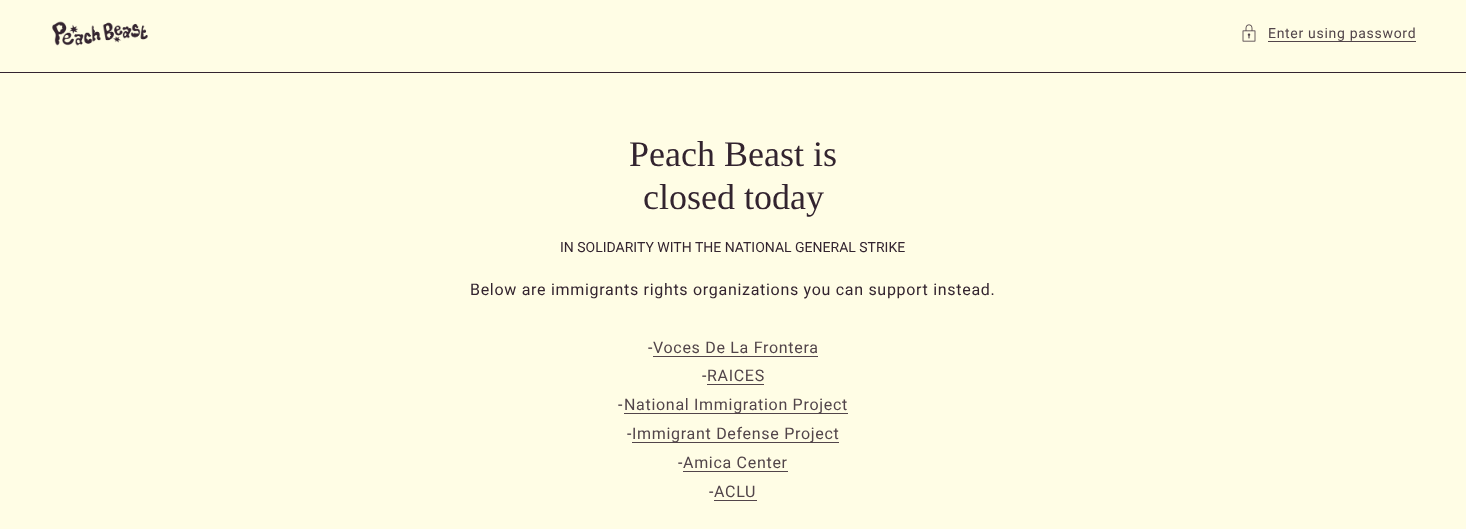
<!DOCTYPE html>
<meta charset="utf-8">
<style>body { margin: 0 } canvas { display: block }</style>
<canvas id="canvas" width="1466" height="529"></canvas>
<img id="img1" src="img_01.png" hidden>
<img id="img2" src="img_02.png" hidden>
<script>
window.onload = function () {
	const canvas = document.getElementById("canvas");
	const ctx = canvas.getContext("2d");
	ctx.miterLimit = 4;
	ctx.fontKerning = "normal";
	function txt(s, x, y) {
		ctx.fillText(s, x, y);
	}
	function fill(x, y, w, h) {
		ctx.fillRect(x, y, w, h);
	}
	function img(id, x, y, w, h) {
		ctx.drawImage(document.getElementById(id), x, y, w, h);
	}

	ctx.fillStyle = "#FFFDE5";
	fill(0, 0, 1466, 529);
	img("img1", 52, 21, 96, 25);
	img("img2", 1242, 24, 14, 18);
	ctx.fillStyle = "#52454A";
	fill(1268, 41, 148, 1);
	ctx.fillStyle = "#33242F";
	fill(0, 72, 1466, 1);
	ctx.fillStyle = "#52454A";
	fill(653, 356, 165, 1);
	fill(707, 384, 57, 1);
	fill(624, 413, 224, 1);
	fill(632, 442, 207, 1);
	fill(683, 471, 105, 1);
	fill(714, 500, 43, 1);
	ctx.letterSpacing = "0.7px";
	ctx.font = "14px Roboto";
	txt("Enter using password", 1268, 38);
	ctx.letterSpacing = "0px";
	ctx.font = "36px Liberation Serif";
	ctx.fillStyle = "#33242F";
	txt("Peach Beast is", 629, 166);
	txt("closed today", 643, 209);
	ctx.font = "14px Roboto";
	txt("IN SOLIDARITY WITH THE NATIONAL GENERAL STRIKE", 560, 252);
	ctx.letterSpacing = "0.7px";
	ctx.font = "16px Roboto";
	txt("Below are immigrants rights organizations you can support instead.", 470, 295);
	txt("-", 648, 353);
	ctx.fillStyle = "#52454A";
	txt("Voces De La Frontera", 653, 353);
	ctx.fillStyle = "#33242F";
	txt("-", 702, 381);
	ctx.fillStyle = "#52454A";
	txt("RAICES", 707, 381);
	ctx.fillStyle = "#33242F";
	txt("-", 618, 410);
	ctx.fillStyle = "#52454A";
	txt("National Immigration Project", 624, 410);
	ctx.fillStyle = "#33242F";
	txt("-", 627, 439);
	ctx.fillStyle = "#52454A";
	txt("Immigrant Defense Project", 632, 439);
	ctx.fillStyle = "#33242F";
	txt("-", 678, 468);
	ctx.fillStyle = "#52454A";
	txt("Amica Center", 683, 468);
	ctx.fillStyle = "#33242F";
	txt("-", 709, 497);
	ctx.fillStyle = "#52454A";
	txt("ACLU", 714, 497);
};
</script>
